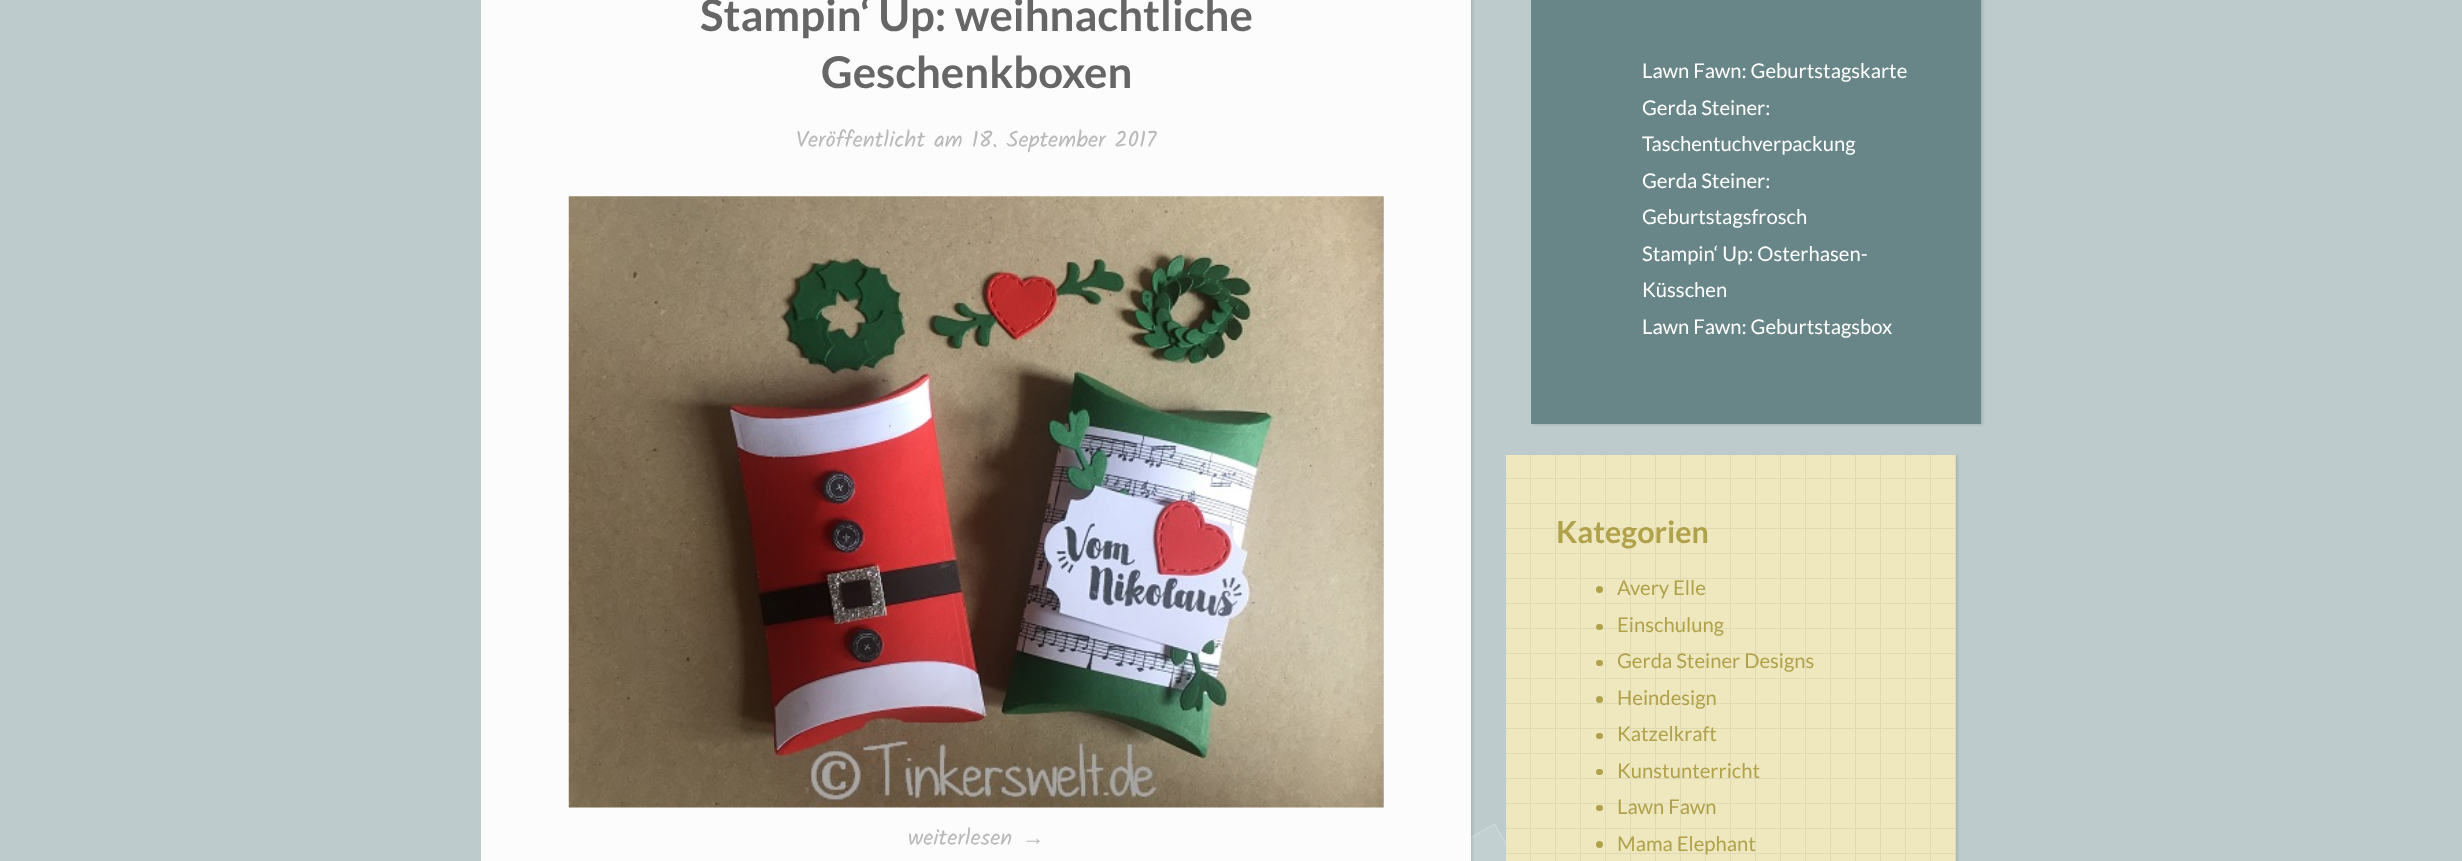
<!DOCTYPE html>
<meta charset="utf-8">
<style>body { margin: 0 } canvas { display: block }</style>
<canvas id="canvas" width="2462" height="861"></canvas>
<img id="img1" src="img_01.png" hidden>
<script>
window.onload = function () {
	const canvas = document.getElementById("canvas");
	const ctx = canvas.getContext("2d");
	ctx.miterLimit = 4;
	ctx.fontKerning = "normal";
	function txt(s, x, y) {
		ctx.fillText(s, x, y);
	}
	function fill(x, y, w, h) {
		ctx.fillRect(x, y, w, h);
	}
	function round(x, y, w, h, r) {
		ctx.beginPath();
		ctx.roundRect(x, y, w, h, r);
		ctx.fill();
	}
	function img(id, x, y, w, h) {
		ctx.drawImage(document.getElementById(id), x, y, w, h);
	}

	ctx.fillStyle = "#BDCBCC";
	fill(0, 0, 2462, 861);
	ctx.fillStyle = "rgba(0, 0, 0, 0.1)";
	ctx.filter = "blur(1px)";
	ctx.beginPath();
	ctx.rect(483, -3, 990, 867);
	ctx.fill();
	ctx.filter = "none";
	ctx.fillStyle = "#FCFCFD";
	fill(481, 0, 990, 861);
	img("img1", 568, 196, 816, 612);
	ctx.fillStyle = "rgba(255, 255, 255, 0.1)";
	ctx.beginPath();
	ctx.moveTo(1332, 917);
	ctx.lineTo(1495, 823);
	ctx.lineTo(1523, 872);
	ctx.lineTo(1360, 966);
	ctx.closePath();
	ctx.fill();
	ctx.beginPath();
	ctx.moveTo(1333, 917.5);
	ctx.lineTo(1494.5, 824);
	ctx.lineTo(1522, 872);
	ctx.lineTo(1360.5, 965);
	ctx.closePath();
	ctx.strokeStyle = "rgba(255, 255, 255, 0.2)";
	ctx.lineWidth = 1.2;
	ctx.stroke();
	ctx.save();
	ctx.beginPath();
	ctx.moveTo(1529, 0);
	ctx.lineTo(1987, 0);
	ctx.lineTo(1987, 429);
	ctx.lineTo(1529, 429);
	ctx.closePath();
	ctx.moveTo(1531, -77);
	ctx.lineTo(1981, -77);
	ctx.lineTo(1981, 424);
	ctx.lineTo(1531, 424);
	ctx.closePath();
	ctx.clip("evenodd");
	ctx.fillStyle = "rgba(0, 0, 0, 0.1)";
	ctx.filter = "blur(1px)";
	ctx.beginPath();
	ctx.rect(1533, -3, 450, 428);
	ctx.fill();
	ctx.filter = "none";
	ctx.restore();
	ctx.fillStyle = "rgba(83, 115, 117, 0.8)";
	fill(1531, 0, 450, 424);
	ctx.fillStyle = "rgba(0, 0, 0, 0.1)";
	ctx.filter = "blur(1px)";
	ctx.beginPath();
	ctx.rect(1508, 456, 450, 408);
	ctx.fill();
	ctx.filter = "none";
	ctx.fillStyle = "#EFE8BE";
	fill(1506, 455, 449, 406);
	ctx.fillStyle = "#DFD9B4";
	fill(1506, 478, 450, 1);
	fill(1506, 503, 450, 1);
	fill(1506, 528, 450, 1);
	fill(1506, 553, 450, 1);
	fill(1506, 578, 450, 1);
	fill(1506, 603, 450, 1);
	fill(1506, 628, 450, 1);
	fill(1506, 653, 450, 1);
	fill(1506, 678, 450, 1);
	fill(1506, 703, 450, 1);
	fill(1506, 728, 450, 1);
	fill(1506, 753, 450, 1);
	fill(1506, 778, 450, 1);
	fill(1506, 803, 450, 1);
	fill(1506, 828, 450, 1);
	fill(1506, 853, 450, 1);
	fill(1530, 455, 1, 406);
	fill(1555, 455, 1, 406);
	fill(1580, 455, 1, 406);
	fill(1605, 455, 1, 406);
	fill(1630, 455, 1, 406);
	fill(1655, 455, 1, 406);
	fill(1680, 455, 1, 406);
	fill(1705, 455, 1, 406);
	fill(1730, 455, 1, 406);
	fill(1755, 455, 1, 406);
	fill(1780, 455, 1, 406);
	fill(1805, 455, 1, 406);
	fill(1830, 455, 1, 406);
	fill(1855, 455, 1, 406);
	fill(1880, 455, 1, 406);
	fill(1905, 455, 1, 406);
	fill(1930, 455, 1, 406);
	fill(1955, 455, 1, 406);
	ctx.fillStyle = "#B0A14B";
	ctx.beginPath();
	ctx.arc(1599.5, 589.5, 3.5, 0, Math.PI * 2);
	ctx.fill();
	round(1596, 624, 7, 6, 3);
	round(1596, 660, 7, 6, 3);
	ctx.beginPath();
	ctx.arc(1599.5, 699.5, 3.5, 0, Math.PI * 2);
	ctx.fill();
	round(1596, 733, 7, 6, 3);
	round(1596, 769, 7, 6, 3);
	round(1596, 805, 7, 6, 3);
	ctx.beginPath();
	ctx.arc(1599.5, 844.5, 3.5, 0, Math.PI * 2);
	ctx.fill();
	ctx.font = "bold 43.75px Lato";
	ctx.fillStyle = "#666666";
	txt("Stampin‘ Up: weihnachtliche", 700, 31);
	txt("Geschenkboxen", 821, 88);
	ctx.font = "22.5px Kalam";
	ctx.fillStyle = "#B9B9B9";
	txt("Veröffentlicht am 18. September 2017", 796, 147);
	txt("weiterlesen", 908, 845);
	ctx.font = "22.5px Liberation Serif";
	txt("→", 1022, 845);
	ctx.font = "20.25px Lato";
	ctx.fillStyle = "#FFFFFF";
	txt("Lawn Fawn: Geburtstagskarte", 1642, 78);
	txt("Gerda Steiner:", 1642, 115);
	txt("Taschentuchverpackung", 1642, 151);
	txt("Gerda Steiner:", 1642, 188);
	txt("Geburtstagsfrosch", 1642, 224);
	txt("Stampin‘ Up: Osterhasen-", 1642, 261);
	txt("Küsschen", 1642, 297);
	txt("Lawn Fawn: Geburtstagsbox", 1642, 334);
	ctx.font = "bold 30.5px Lato";
	ctx.fillStyle = "#B0A14B";
	txt("Kategorien", 1556, 543);
	ctx.font = "20.25px Lato";
	txt("Avery Elle", 1617, 595);
	txt("Einschulung", 1617, 632);
	txt("Gerda Steiner Designs", 1617, 668);
	txt("Heindesign", 1617, 705);
	txt("Katzelkraft", 1617, 741);
	txt("Kunstunterricht", 1617, 778);
	txt("Lawn Fawn", 1617, 814);
	txt("Mama Elephant", 1617, 851);
};
</script>
